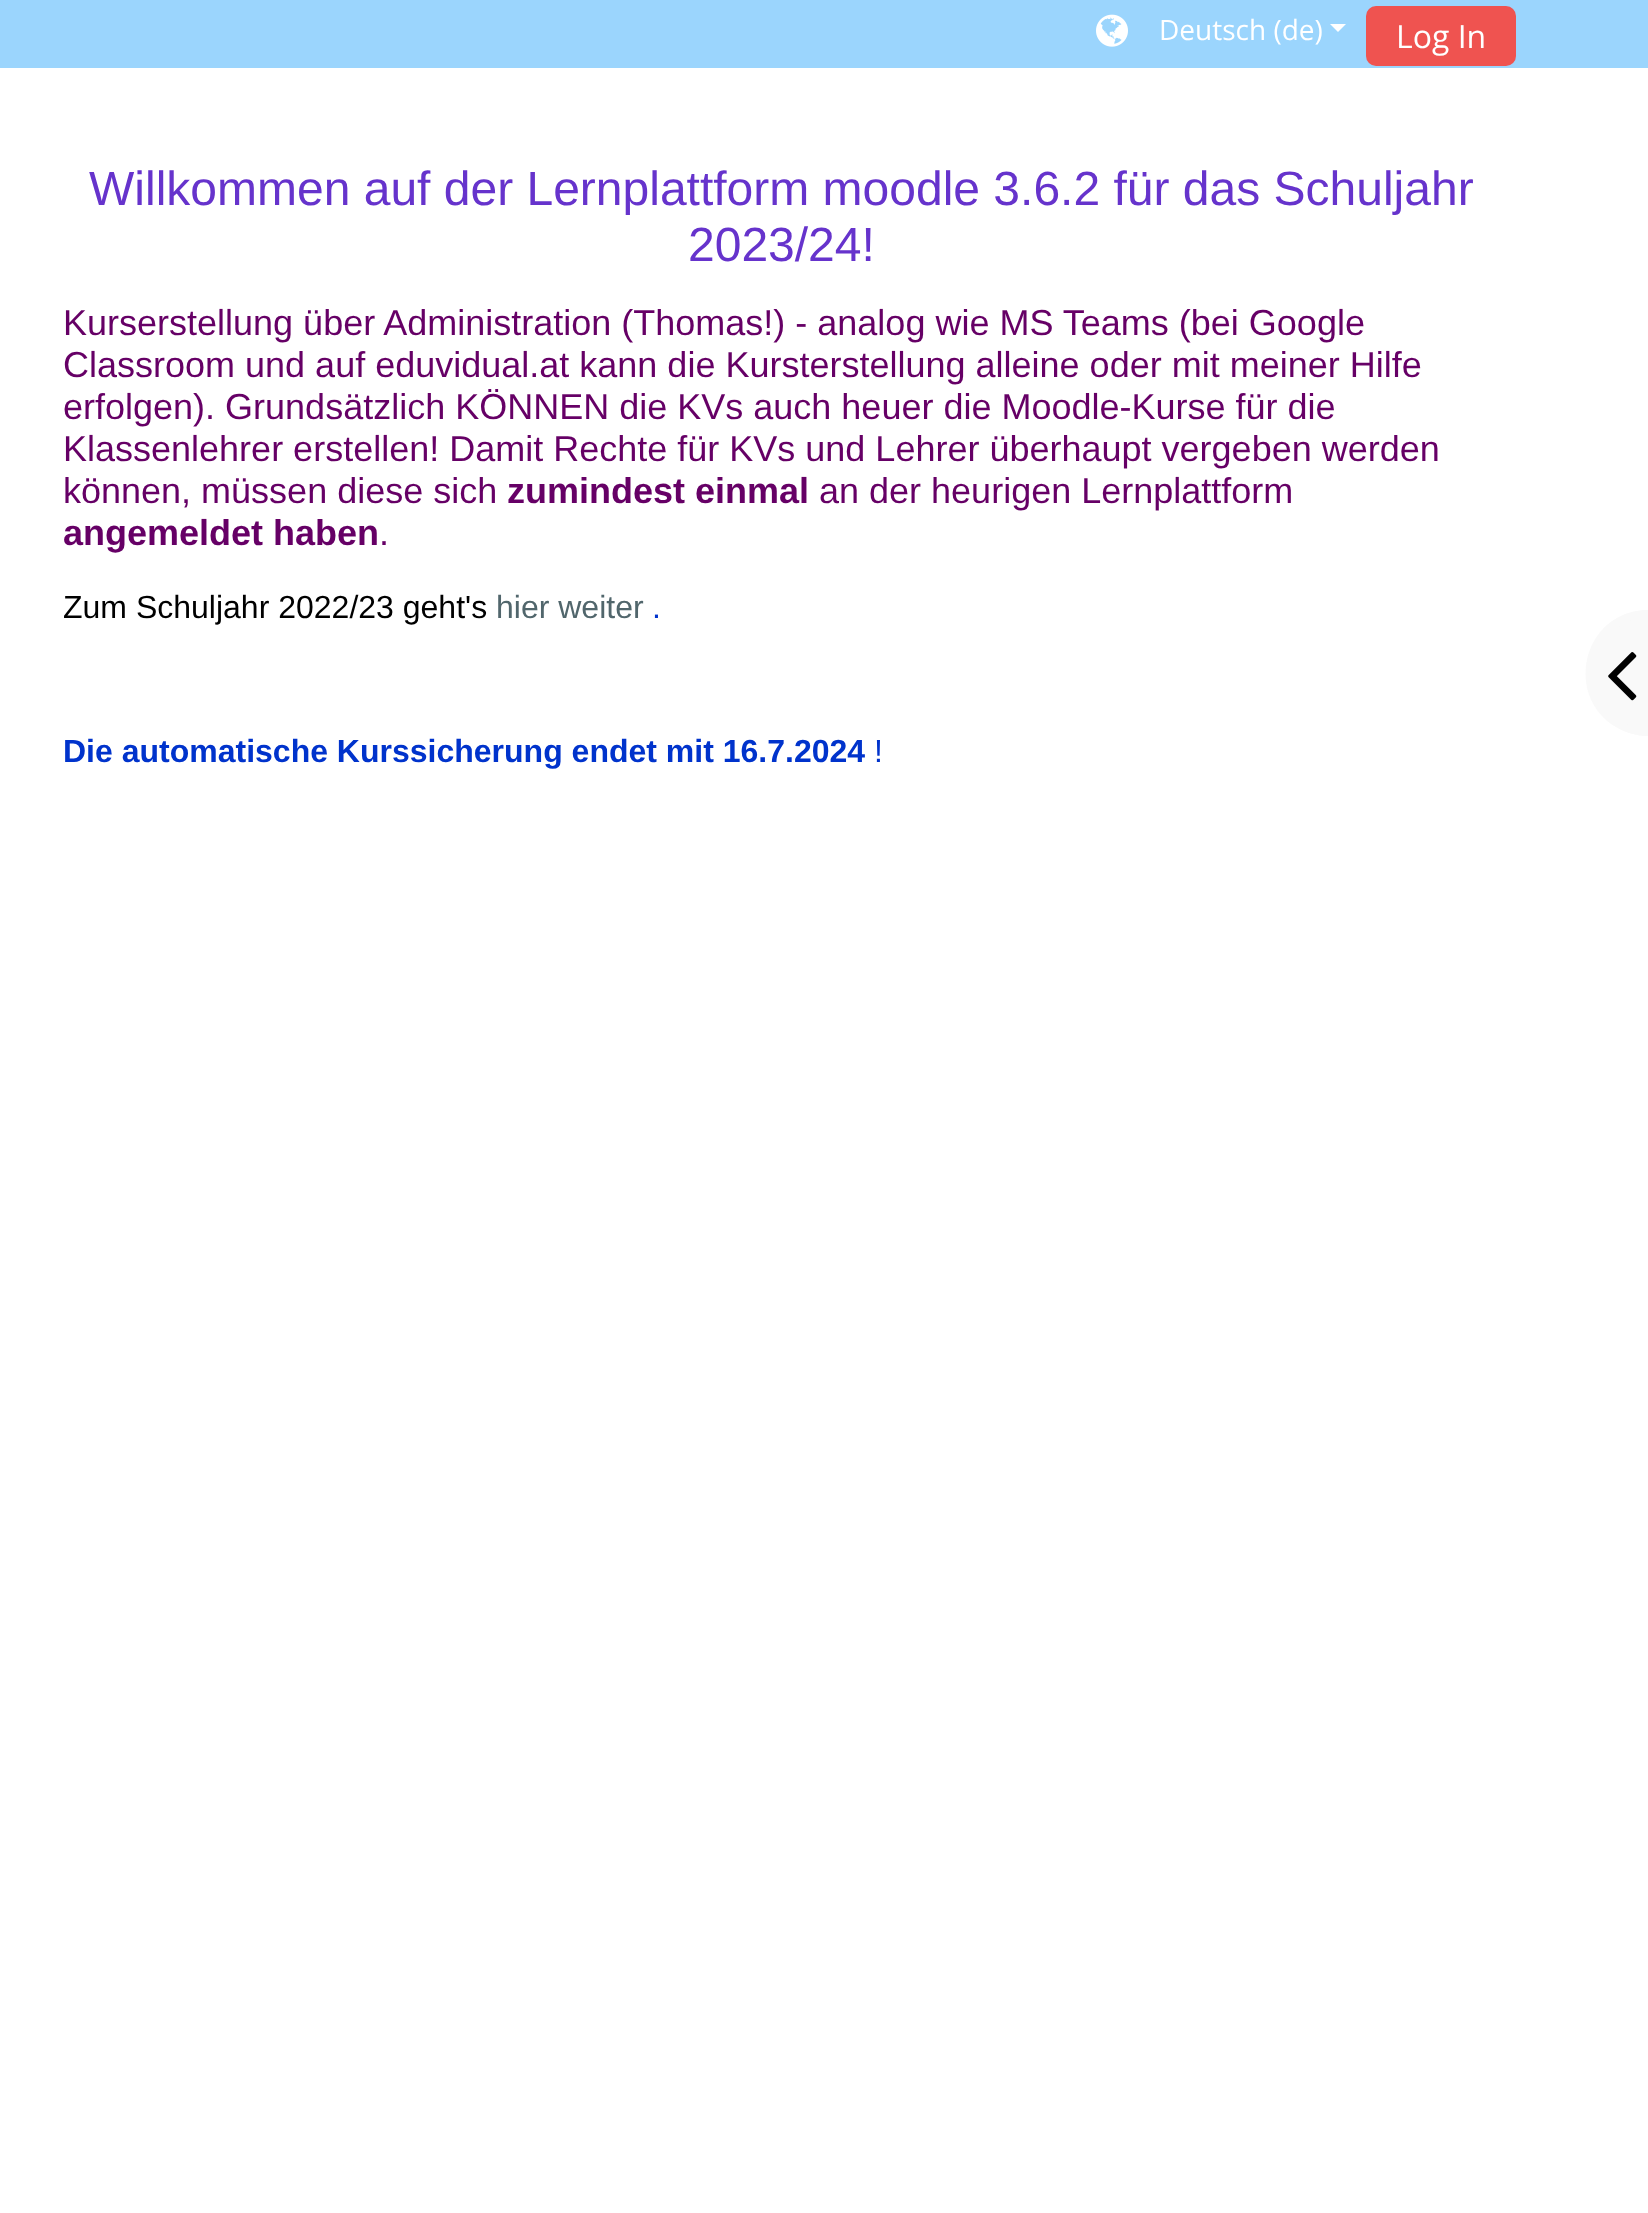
<!DOCTYPE html>
<meta charset="utf-8">
<style>body { margin: 0 } canvas { display: block }</style>
<canvas id="canvas" width="1648" height="2213"></canvas>
<img id="img1" src="img_01.png" hidden>
<img id="img2" src="img_02.png" hidden>
<script>
window.onload = function () {
	const canvas = document.getElementById("canvas");
	const ctx = canvas.getContext("2d");
	ctx.miterLimit = 4;
	ctx.fontKerning = "normal";
	function txt(s, x, y) {
		ctx.fillText(s, x, y);
	}
	function fill(x, y, w, h) {
		ctx.fillRect(x, y, w, h);
	}
	function round(x, y, w, h, r) {
		ctx.beginPath();
		ctx.roundRect(x, y, w, h, r);
		ctx.fill();
	}
	function img(id, x, y, w, h) {
		ctx.drawImage(document.getElementById(id), x, y, w, h);
	}

	ctx.fillStyle = "#FFFFFF";
	fill(0, 0, 1648, 2213);
	ctx.fillStyle = "#9BD5FD";
	fill(0, 0, 1648, 68);
	img("img1", 1096, 14, 32, 33);
	ctx.fillStyle = "#FFFFFF";
	ctx.beginPath();
	ctx.moveTo(1330, 24);
	ctx.lineTo(1346, 24);
	ctx.lineTo(1338, 32);
	ctx.closePath();
	ctx.fill();
	ctx.fillStyle = "#EF5350";
	round(1366, 6, 150, 60, 10);
	ctx.fillStyle = "#F9F9F9";
	ctx.beginPath();
	ctx.roundRect(1586, 610, 62, 126, [62, 0, 0, 62]);
	ctx.fill();
	ctx.beginPath();
	ctx.moveTo(1648, 610);
	ctx.lineTo(1648, 736);
	ctx.bezierCurveTo(1636, 736, 1624, 732, 1613, 725);
	ctx.bezierCurveTo(1563, 691, 1586, 610, 1648, 610);
	ctx.closePath();
	ctx.moveTo(1648, 618);
	ctx.lineTo(1648, 728);
	ctx.bezierCurveTo(1594, 728, 1574, 657, 1618, 627);
	ctx.bezierCurveTo(1627, 621, 1637, 618, 1648, 618);
	ctx.closePath();
	ctx.fill("evenodd");
	img("img2", 1608, 652, 29, 49);
	ctx.font = "28px Open Sans";
	ctx.fillStyle = "#FFFFFF";
	txt("Deutsch (de)", 1159, 40);
	ctx.font = "32px Open Sans";
	txt("Log In", 1396, 48);
	ctx.font = "48px Liberation Sans";
	ctx.fillStyle = "#6633CC";
	txt("Willkommen auf der Lernplattform moodle 3.6.2 für das Schuljahr", 89, 205);
	txt("2023/24!", 688, 261);
	ctx.font = "36px Liberation Sans";
	ctx.fillStyle = "#660066";
	txt("Kurserstellung über Administration (Thomas!) - analog wie MS Teams (bei Google", 63, 335);
	txt("Classroom und auf eduvidual.at kann die Kursterstellung alleine oder mit meiner Hilfe", 63, 377);
	txt("erfolgen). Grundsätzlich KÖNNEN die KVs auch heuer die Moodle-Kurse für die", 63, 419);
	txt("Klassenlehrer erstellen! Damit Rechte für KVs und Lehrer überhaupt vergeben werden", 63, 461);
	txt("können, müssen diese sich", 63, 503);
	ctx.font = "bold 36px Liberation Sans";
	txt("zumindest einmal", 507, 503);
	ctx.font = "36px Liberation Sans";
	txt("an der heurigen Lernplattform", 819, 503);
	ctx.font = "bold 36px Liberation Sans";
	txt("angemeldet haben", 63, 545);
	ctx.font = "36px Liberation Sans";
	txt(".", 379, 545);
	ctx.font = "32px Liberation Sans";
	ctx.fillStyle = "#000000";
	txt("Zum Schuljahr 2022/23 geht's", 63, 618);
	ctx.fillStyle = "#51666C";
	txt("hier weiter", 496, 618);
	ctx.fillStyle = "#0033CC";
	txt(".", 652, 618);
	ctx.font = "bold 32px Liberation Sans";
	txt("Die automatische Kurssicherung endet mit 16.7.2024", 63, 762);
	ctx.font = "32px Liberation Sans";
	txt("!", 874, 762);
};
</script>
